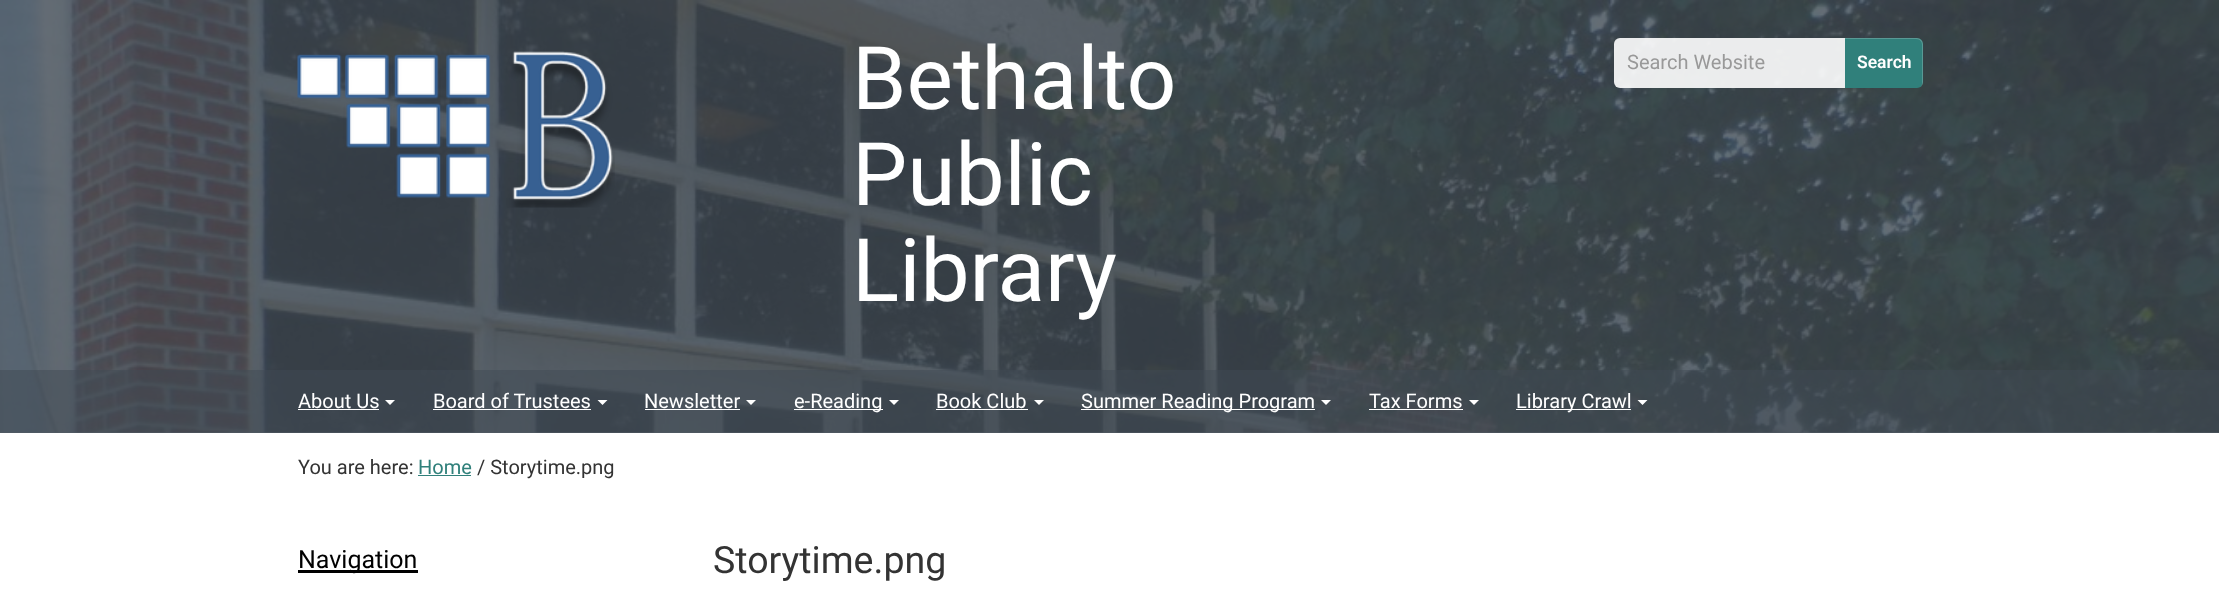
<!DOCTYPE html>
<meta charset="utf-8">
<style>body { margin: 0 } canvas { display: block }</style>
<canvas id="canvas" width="2219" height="592"></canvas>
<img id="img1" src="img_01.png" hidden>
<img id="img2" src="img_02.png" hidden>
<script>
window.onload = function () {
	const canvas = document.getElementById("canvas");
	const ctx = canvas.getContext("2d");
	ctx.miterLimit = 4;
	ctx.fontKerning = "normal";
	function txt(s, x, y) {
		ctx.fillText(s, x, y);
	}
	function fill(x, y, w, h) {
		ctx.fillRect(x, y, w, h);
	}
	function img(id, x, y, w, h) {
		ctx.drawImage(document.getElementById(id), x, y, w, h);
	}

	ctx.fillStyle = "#FFFFFF";
	fill(0, 0, 2219, 592);
	img("img1", 0, 0, 2219, 433);
	ctx.fillStyle = "rgba(63, 73, 83, 0.8)";
	fill(0, 0, 2219, 370);
	img("img2", 297, 51, 318, 157);
	ctx.fillStyle = "rgba(255, 255, 255, 0.9)";
	ctx.beginPath();
	ctx.roundRect(1614, 38, 231, 50, [6, 0, 0, 6]);
	ctx.fill();
	ctx.fillStyle = "#30807B";
	ctx.beginPath();
	ctx.roundRect(1845, 38, 78, 50, [0, 6, 6, 0]);
	ctx.fill();
	ctx.fillStyle = "rgba(255, 255, 255, 0.2)";
	ctx.beginPath();
	ctx.moveTo(1845, 39);
	ctx.lineTo(1916, 39);
	ctx.bezierCurveTo(1920, 39, 1922, 42, 1922, 45);
	ctx.lineTo(1922, 82);
	ctx.bezierCurveTo(1922, 84, 1922, 85, 1921, 87);
	ctx.bezierCurveTo(1922, 86, 1923, 84, 1923, 82);
	ctx.lineTo(1923, 44);
	ctx.bezierCurveTo(1923, 41, 1920, 38, 1917, 38);
	ctx.lineTo(1845, 38);
	ctx.closePath();
	ctx.fill();
	ctx.fillStyle = "rgba(63, 73, 83, 0.9)";
	fill(0, 370, 2219, 63);
	ctx.fillStyle = "#FFFFFF";
	fill(298, 409, 81, 1);
	ctx.beginPath();
	ctx.moveTo(385, 400);
	ctx.lineTo(395, 400);
	ctx.lineTo(390, 405);
	ctx.closePath();
	ctx.fill();
	fill(433, 409, 158, 1);
	ctx.beginPath();
	ctx.moveTo(597.5, 400);
	ctx.lineTo(607.5, 400);
	ctx.lineTo(602.5, 405);
	ctx.closePath();
	ctx.fill();
	fill(645, 409, 95, 1);
	ctx.beginPath();
	ctx.moveTo(746, 400);
	ctx.lineTo(756, 400);
	ctx.lineTo(751, 405);
	ctx.closePath();
	ctx.fill();
	fill(794, 409, 89, 1);
	ctx.beginPath();
	ctx.moveTo(889, 400);
	ctx.lineTo(899, 400);
	ctx.lineTo(894, 405);
	ctx.closePath();
	ctx.fill();
	fill(936, 409, 92, 1);
	ctx.beginPath();
	ctx.moveTo(1034, 400);
	ctx.lineTo(1044, 400);
	ctx.lineTo(1039, 405);
	ctx.closePath();
	ctx.fill();
	fill(1081, 409, 234, 1);
	ctx.beginPath();
	ctx.moveTo(1321, 400);
	ctx.lineTo(1331, 400);
	ctx.lineTo(1326, 405);
	ctx.closePath();
	ctx.fill();
	fill(1369, 409, 94, 1);
	ctx.beginPath();
	ctx.moveTo(1469, 400);
	ctx.lineTo(1479, 400);
	ctx.lineTo(1474, 405);
	ctx.closePath();
	ctx.fill();
	fill(1516, 409, 115, 1);
	ctx.beginPath();
	ctx.moveTo(1637.5, 400);
	ctx.lineTo(1647.5, 400);
	ctx.lineTo(1642.5, 405);
	ctx.closePath();
	ctx.fill();
	ctx.fillStyle = "#30807B";
	fill(418, 475, 53, 1);
	ctx.fillStyle = "#000000";
	fill(298, 570, 120, 3);
	ctx.font = "87.5px Roboto";
	ctx.fillStyle = "#FFFFFF";
	txt("Bethalto", 852, 109);
	txt("Public", 852, 205);
	txt("Library", 852, 301);
	ctx.font = "20px Roboto";
	ctx.fillStyle = "#999999";
	txt("Search Website", 1627, 69);
	ctx.font = "600 17.5px Roboto";
	ctx.fillStyle = "#FFFFFF";
	txt("Search", 1857, 68);
	ctx.font = "20px Roboto";
	txt("About Us", 298, 408);
	txt("Board of Trustees", 433, 408);
	txt("Newsletter", 644, 408);
	txt("e-Reading", 794, 408);
	txt("Book Club", 936, 408);
	txt("Summer Reading Program", 1081, 408);
	txt("Tax Forms", 1369, 408);
	txt("Library Crawl", 1516, 408);
	ctx.fillStyle = "#333333";
	txt("You are here:", 298, 474);
	ctx.fillStyle = "#30807B";
	txt("Home", 418, 474);
	ctx.fillStyle = "#333333";
	txt("/ Storytime.png", 477, 474);
	ctx.font = "25px Roboto";
	ctx.fillStyle = "#000000";
	txt("Navigation", 298, 568);
	ctx.font = "37.5px Roboto";
	ctx.fillStyle = "#333333";
	txt("Storytime.png", 713, 573);
};
</script>
